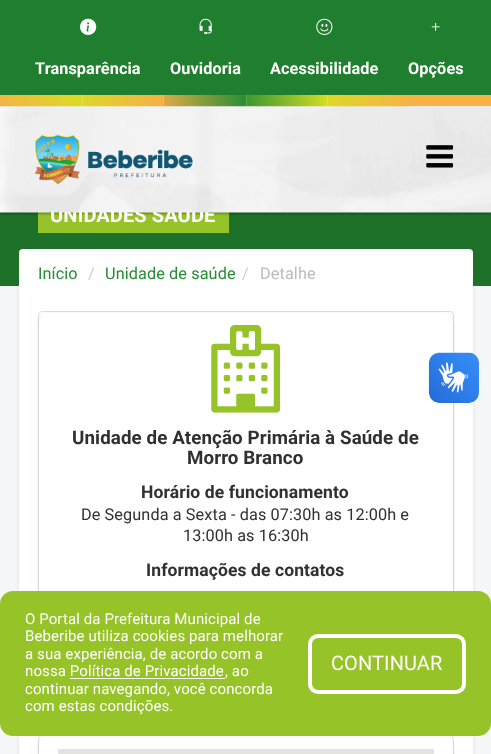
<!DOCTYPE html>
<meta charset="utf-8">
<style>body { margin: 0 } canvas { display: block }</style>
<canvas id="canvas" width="491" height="754"></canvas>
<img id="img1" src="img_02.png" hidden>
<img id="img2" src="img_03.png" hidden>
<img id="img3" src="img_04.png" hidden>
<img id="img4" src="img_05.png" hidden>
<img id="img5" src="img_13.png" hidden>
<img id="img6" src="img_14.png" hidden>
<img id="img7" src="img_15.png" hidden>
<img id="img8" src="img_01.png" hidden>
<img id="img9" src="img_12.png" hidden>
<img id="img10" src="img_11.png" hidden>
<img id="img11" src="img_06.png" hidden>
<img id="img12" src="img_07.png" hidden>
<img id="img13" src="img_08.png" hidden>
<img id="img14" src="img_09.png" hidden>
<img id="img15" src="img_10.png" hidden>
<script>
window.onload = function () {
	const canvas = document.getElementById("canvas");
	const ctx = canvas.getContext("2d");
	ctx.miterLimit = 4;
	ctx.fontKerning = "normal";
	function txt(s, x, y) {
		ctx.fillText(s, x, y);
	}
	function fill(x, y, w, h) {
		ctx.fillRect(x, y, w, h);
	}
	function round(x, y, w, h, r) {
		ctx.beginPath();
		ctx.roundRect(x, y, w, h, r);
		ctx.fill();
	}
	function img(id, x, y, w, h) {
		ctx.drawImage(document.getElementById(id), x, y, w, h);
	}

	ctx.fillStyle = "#F6F7F8";
	fill(0, 0, 491, 754);
	ctx.fillStyle = "rgba(3, 0, 71, 0.09)";
	ctx.filter = "blur(2px)";
	ctx.beginPath();
	ctx.roundRect(19, 250, 454, 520, 10);
	ctx.fill();
	ctx.filter = "none";
	ctx.fillStyle = "#1D7129";
	fill(0, 212, 491, 74);
	ctx.fillStyle = "#96C327";
	fill(38, 212, 191, 21);
	ctx.fillStyle = "rgba(0, 0, 0, 0.3)";
	ctx.filter = "blur(1px)";
	ctx.beginPath();
	ctx.rect(0, 1, 491, 213);
	ctx.fill();
	ctx.filter = "none";
	ctx.fillStyle = "#207F2E";
	fill(0, 0, 491, 95);
	img("img1", 80, 18, 17, 17);
	img("img2", 199, 18, 13, 16);
	img("img3", 316, 18, 17, 17);
	img("img4", 431, 22, 9, 9);
	ctx.fillStyle = "#FFFFFF";
	fill(19, 295, 454, 459);
	round(19, 249, 454, 50, 4);
	ctx.beginPath();
	ctx.roundRect(38.5, 311.5, 415, 391, 3.5);
	ctx.strokeStyle = "#DDDDDD";
	ctx.stroke();
	ctx.fillStyle = "rgba(3, 0, 71, 0.09)";
	ctx.filter = "blur(2px)";
	ctx.beginPath();
	ctx.roundRect(39, 314, 414, 389, 10);
	ctx.fill();
	ctx.filter = "none";
	ctx.fillStyle = "#FFFFFF";
	round(39, 313, 414, 388, 10);
	img("img5", 211, 325, 69, 88);
	ctx.beginPath();
	ctx.roundRect(38.5, 735.5, 415, 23, 3.5);
	ctx.stroke();
	ctx.fillStyle = "rgba(3, 0, 71, 0.09)";
	ctx.filter = "blur(2px)";
	ctx.beginPath();
	ctx.roundRect(39, 738, 414, 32, 10);
	ctx.fill();
	ctx.filter = "none";
	ctx.fillStyle = "#FFFFFF";
	round(39, 736, 414, 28, 10);
	ctx.fillStyle = "#E5E3DF";
	fill(58, 749, 376, 5);
	img("img6", 428, 352, 51, 51);
	img("img7", 429, 353, 50, 50);
	ctx.fillStyle = "#96C327";
	round(0, 591, 491, 145, 13);
	ctx.fillStyle = "#FFFFFF";
	fill(70, 678, 155, 1);
	ctx.beginPath();
	ctx.roundRect(310, 636, 154, 56, 8);
	ctx.strokeStyle = "#FFFFFF";
	ctx.lineWidth = 4;
	ctx.stroke();
	ctx.letterSpacing = "0.1px";
	ctx.font = "bold 16.25px Roboto";
	txt("Transparência", 35, 74);
	txt("Ouvidoria", 170, 74);
	txt("Acessibilidade", 270, 74);
	txt("Opções", 408, 74);
	ctx.font = "bold 20px Roboto";
	txt("UNIDADES SAÚDE", 50, 222);
	img("img8", 0, 95, 491, 118);
	img("img9", 426, 145, 28, 23);
	img("img10", 34, 134, 159, 51);
	ctx.fillStyle = "#F7B243";
	fill(410, 95, 81, 11);
	img("img11", 0, 95, 83, 12);
	img("img12", 82, 95, 82, 12);
	img("img13", 163, 95, 84, 12);
	img("img14", 246, 95, 82, 12);
	img("img15", 327, 95, 83, 12);
	ctx.font = "16.25px Roboto";
	ctx.fillStyle = "#248D33";
	txt("Início", 38, 279);
	ctx.fillStyle = "#CCCCCC";
	txt("/", 88, 279);
	ctx.fillStyle = "#248D33";
	txt("Unidade de saúde", 105, 279);
	ctx.fillStyle = "#CCCCCC";
	txt("/", 242, 279);
	ctx.fillStyle = "#BBBBBB";
	txt("Detalhe", 260, 279);
	ctx.font = "bold 18.75px Roboto";
	ctx.fillStyle = "#303030";
	txt("Unidade de Atenção Primária à Saúde de", 72, 444);
	txt("Morro Branco", 187, 464);
	ctx.font = "bold 17.5px Roboto";
	txt("Horário de funcionamento", 141, 498);
	ctx.font = "16.25px Roboto";
	txt("De Segunda a Sexta - das 07:30h as 12:00h e", 81, 520);
	txt("13:00h as 16:30h", 183, 541);
	ctx.font = "bold 17.5px Roboto";
	txt("Informações de contatos", 146, 576);
	ctx.font = "15px Roboto";
	ctx.fillStyle = "#FFFFFF";
	txt("O Portal da Prefeitura Municipal de", 25, 624);
	txt("Beberibe utiliza cookies para melhorar", 25, 641);
	txt("a sua experiência, de acordo com a", 25, 659);
	txt("nossa Política de Privacidade", 25, 676);
	txt(", ao", 225, 676);
	txt("continuar navegando, você concorda", 25, 694);
	txt("com estas condições.", 25, 711);
	ctx.font = "20px Roboto";
	txt("CONTINUAR", 331, 670);
};
</script>
